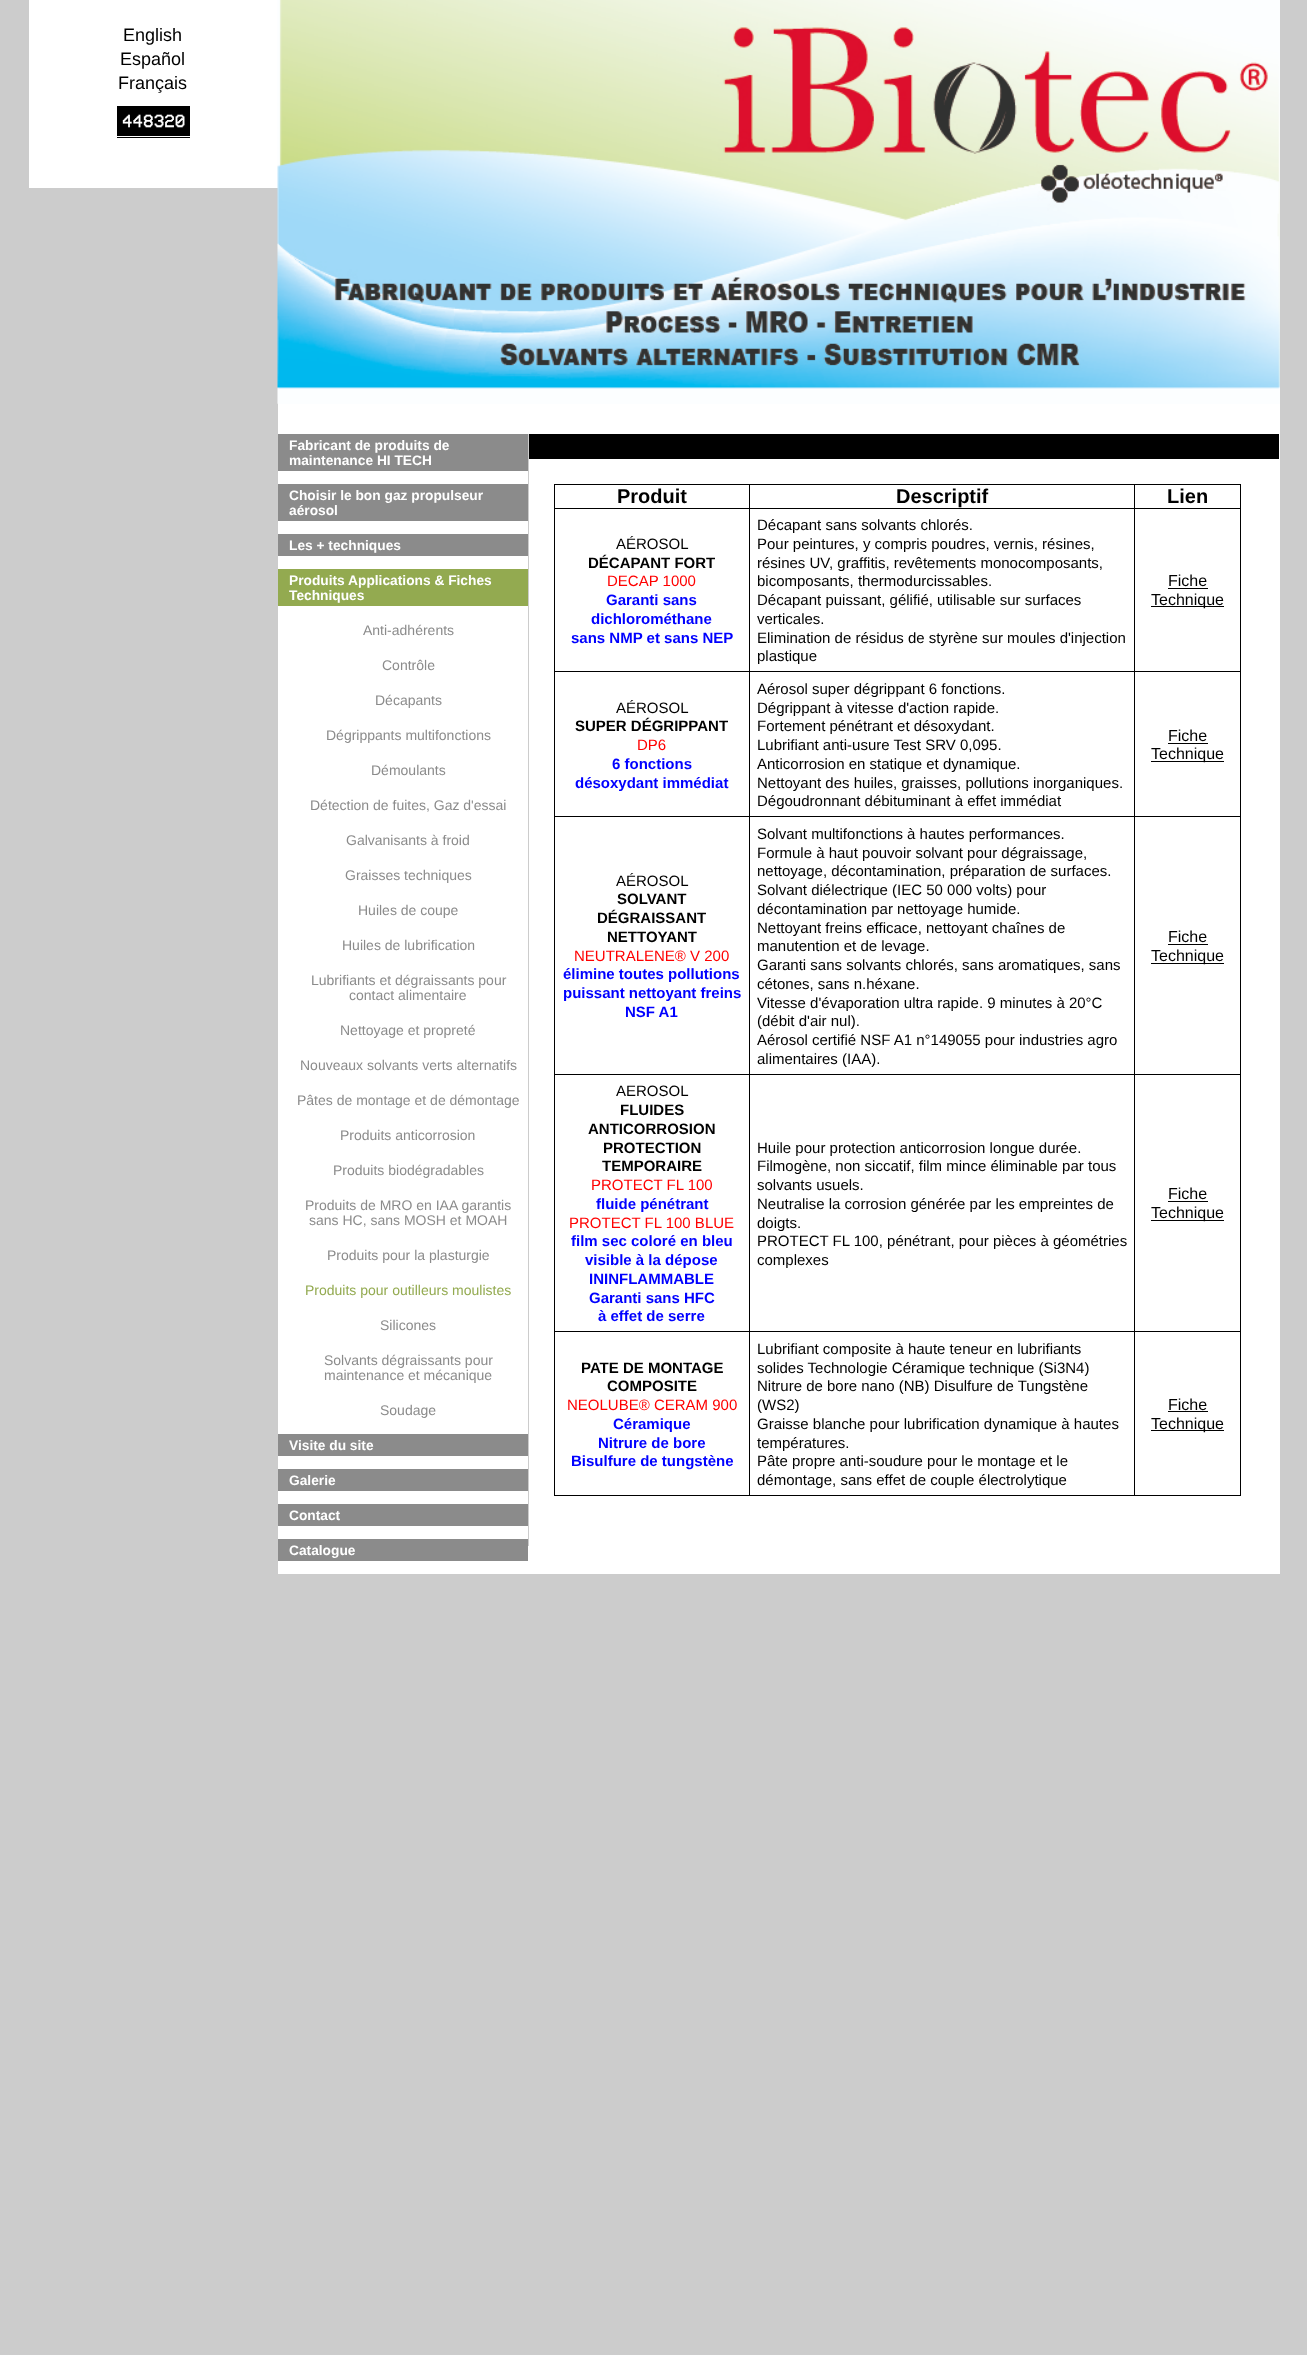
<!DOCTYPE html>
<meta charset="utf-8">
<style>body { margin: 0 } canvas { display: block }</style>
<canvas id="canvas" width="1307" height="2355"></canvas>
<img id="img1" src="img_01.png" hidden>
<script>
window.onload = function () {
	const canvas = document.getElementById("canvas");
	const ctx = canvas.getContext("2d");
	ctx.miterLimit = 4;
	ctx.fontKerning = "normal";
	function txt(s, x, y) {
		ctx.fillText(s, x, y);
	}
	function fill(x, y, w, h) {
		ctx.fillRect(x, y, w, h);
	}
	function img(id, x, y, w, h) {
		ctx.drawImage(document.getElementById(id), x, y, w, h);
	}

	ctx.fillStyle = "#CCCCCC";
	fill(0, 0, 1307, 2355);
	ctx.fillStyle = "#FFFFFF";
	fill(29, 0, 249, 188);
	ctx.fillStyle = "#000000";
	fill(117, 106, 73, 32);
	ctx.fillStyle = "#FFFFFF";
	fill(116, 136, 75, 1);
	fill(278, 403, 1002, 1171);
	img("img1", 277, 0, 1003, 404);
	ctx.fillStyle = "#8B8B8B";
	fill(278, 434, 250, 37);
	fill(278, 484, 250, 37);
	fill(278, 534, 250, 22);
	ctx.fillStyle = "#93AA50";
	fill(278, 569, 250, 37);
	ctx.fillStyle = "#8B8B8B";
	fill(278, 1434, 250, 22);
	fill(278, 1469, 250, 22);
	fill(278, 1504, 250, 22);
	fill(278, 1539, 250, 22);
	ctx.fillStyle = "#CCCCCC";
	fill(528, 434, 1, 1112);
	ctx.fillStyle = "#000000";
	fill(529, 434, 750, 25);
	fill(554, 1495, 687, 1);
	fill(1134, 484, 107, 1);
	fill(1134, 508, 107, 1);
	fill(1134, 671, 107, 1);
	fill(1134, 816, 107, 1);
	fill(1134, 1074, 107, 1);
	fill(1134, 1331, 107, 1);
	fill(1134, 1331, 1, 165);
	fill(749, 1331, 386, 1);
	fill(1134, 1074, 1, 259);
	fill(749, 1074, 386, 1);
	fill(1134, 816, 1, 259);
	fill(749, 816, 386, 1);
	fill(1134, 671, 1, 147);
	fill(749, 671, 386, 1);
	fill(1134, 508, 1, 165);
	fill(749, 508, 386, 1);
	fill(1134, 484, 1, 25);
	fill(749, 484, 386, 1);
	fill(749, 1331, 1, 165);
	fill(554, 1331, 196, 1);
	fill(749, 1074, 1, 259);
	fill(554, 1074, 196, 1);
	fill(749, 816, 1, 259);
	fill(554, 816, 196, 1);
	fill(749, 671, 1, 147);
	fill(554, 671, 196, 1);
	fill(749, 508, 1, 165);
	fill(554, 508, 196, 1);
	fill(749, 484, 1, 25);
	fill(554, 484, 196, 1);
	fill(554, 1331, 1, 165);
	fill(554, 1074, 1, 259);
	fill(554, 816, 1, 259);
	fill(554, 671, 1, 147);
	fill(554, 508, 1, 165);
	fill(554, 484, 1, 25);
	fill(1240, 1331, 1, 165);
	fill(1240, 1074, 1, 259);
	fill(1240, 816, 1, 259);
	fill(1240, 671, 1, 147);
	fill(1240, 508, 1, 165);
	fill(1240, 484, 1, 25);
	fill(1168, 588, 40, 1);
	fill(1151, 606, 73, 1);
	fill(1168, 743, 40, 1);
	fill(1151, 761, 73, 1);
	fill(1168, 944, 40, 1);
	fill(1151, 963, 73, 1);
	fill(1168, 1201, 40, 1);
	fill(1151, 1220, 73, 1);
	fill(1168, 1411, 40, 1);
	fill(1151, 1430, 73, 1);
	ctx.font = "18px Liberation Sans";
	txt("English", 123, 41);
	txt("Español", 120, 65);
	txt("Français", 118, 89);
	ctx.font = "18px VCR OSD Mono";
	ctx.fillStyle = "#FFFFFF";
	txt("448320", 122, 128);
	ctx.font = "bold 13.75px Liberation Sans";
	txt("Fabricant de produits de", 289, 450);
	txt("maintenance HI TECH", 289, 465);
	txt("Choisir le bon gaz propulseur", 289, 500);
	txt("aérosol", 289, 515);
	txt("Les + techniques", 289, 550);
	txt("Produits Applications & Fiches", 289, 585);
	txt("Techniques", 289, 600);
	ctx.font = "14px Liberation Sans";
	ctx.fillStyle = "#8B8B8B";
	txt("Anti-adhérents", 363, 635);
	txt("Contrôle", 382, 670);
	txt("Décapants", 375, 705);
	txt("Dégrippants multifonctions", 326, 740);
	txt("Démoulants", 371, 775);
	txt("Détection de fuites, Gaz d'essai", 310, 810);
	txt("Galvanisants à froid", 346, 845);
	txt("Graisses techniques", 345, 880);
	txt("Huiles de coupe", 358, 915);
	txt("Huiles de lubrification", 342, 950);
	txt("Lubrifiants et dégraissants pour", 311, 985);
	txt("contact alimentaire", 349, 1000);
	txt("Nettoyage et propreté", 340, 1035);
	txt("Nouveaux solvants verts alternatifs", 300, 1070);
	txt("Pâtes de montage et de démontage", 297, 1105);
	txt("Produits anticorrosion", 340, 1140);
	txt("Produits biodégradables", 333, 1175);
	txt("Produits de MRO en IAA garantis", 305, 1210);
	txt("sans HC, sans MOSH et MOAH", 309, 1225);
	txt("Produits pour la plasturgie", 327, 1260);
	ctx.fillStyle = "#93AA50";
	txt("Produits pour outilleurs moulistes", 305, 1295);
	ctx.fillStyle = "#8B8B8B";
	txt("Silicones", 380, 1330);
	txt("Solvants dégraissants pour", 324, 1365);
	txt("maintenance et mécanique", 324, 1380);
	txt("Soudage", 380, 1415);
	ctx.font = "bold 13.75px Liberation Sans";
	ctx.fillStyle = "#FFFFFF";
	txt("Visite du site", 289, 1450);
	txt("Galerie", 289, 1485);
	txt("Contact", 289, 1520);
	txt("Catalogue", 289, 1555);
	ctx.font = "bold 20px Liberation Sans";
	ctx.fillStyle = "#000000";
	txt("Produit", 617, 503);
	txt("Descriptif", 896, 503);
	txt("Lien", 1167, 503);
	ctx.font = "15px Liberation Sans";
	txt("AÉROSOL", 616, 549);
	ctx.font = "bold 15px Liberation Sans";
	txt("DÉCAPANT FORT", 588, 568);
	ctx.font = "15px Liberation Sans";
	ctx.fillStyle = "#FF0000";
	txt("DECAP 1000", 607, 586);
	ctx.font = "bold 15px Liberation Sans";
	ctx.fillStyle = "#0000FF";
	txt("Garanti sans", 606, 605);
	txt("dichlorométhane", 591, 624);
	txt("sans NMP et sans NEP", 571, 643);
	ctx.font = "15px Liberation Sans";
	ctx.fillStyle = "#000000";
	txt("Décapant sans solvants chlorés.", 757, 530);
	txt("Pour peintures, y compris poudres, vernis, résines,", 757, 549);
	txt("résines UV, graffitis, revêtements monocomposants,", 757, 568);
	txt("bicomposants, thermodurcissables.", 757, 586);
	txt("Décapant puissant, gélifié, utilisable sur surfaces", 757, 605);
	txt("verticales.", 757, 624);
	txt("Elimination de résidus de styrène sur moules d'injection", 757, 643);
	txt("plastique", 757, 661);
	ctx.font = "16px Liberation Sans";
	txt("Fiche", 1168, 586);
	txt("Technique", 1151, 605);
	ctx.font = "15px Liberation Sans";
	txt("AÉROSOL", 616, 713);
	ctx.font = "bold 15px Liberation Sans";
	txt("SUPER DÉGRIPPANT", 575, 731);
	ctx.font = "15px Liberation Sans";
	ctx.fillStyle = "#FF0000";
	txt("DP6", 637, 750);
	ctx.font = "bold 15px Liberation Sans";
	ctx.fillStyle = "#0000FF";
	txt("6 fonctions", 612, 769);
	txt("désoxydant immédiat", 575, 788);
	ctx.font = "15px Liberation Sans";
	ctx.fillStyle = "#000000";
	txt("Aérosol super dégrippant 6 fonctions.", 757, 694);
	txt("Dégrippant à vitesse d'action rapide.", 757, 713);
	txt("Fortement pénétrant et désoxydant.", 757, 731);
	txt("Lubrifiant anti-usure Test SRV 0,095.", 757, 750);
	txt("Anticorrosion en statique et dynamique.", 757, 769);
	txt("Nettoyant des huiles, graisses, pollutions inorganiques.", 757, 788);
	txt("Dégoudronnant débituminant à effet immédiat", 757, 806);
	ctx.font = "16px Liberation Sans";
	txt("Fiche", 1168, 741);
	txt("Technique", 1151, 759);
	ctx.font = "15px Liberation Sans";
	txt("AÉROSOL", 616, 886);
	ctx.font = "bold 15px Liberation Sans";
	txt("SOLVANT", 617, 904);
	txt("DÉGRAISSANT", 597, 923);
	txt("NETTOYANT", 607, 942);
	ctx.font = "15px Liberation Sans";
	ctx.fillStyle = "#FF0000";
	txt("NEUTRALENE® V 200", 574, 961);
	ctx.font = "bold 15px Liberation Sans";
	ctx.fillStyle = "#0000FF";
	txt("élimine toutes pollutions", 563, 979);
	txt("puissant nettoyant freins", 563, 998);
	txt("NSF A1", 625, 1017);
	ctx.font = "15px Liberation Sans";
	ctx.fillStyle = "#000000";
	txt("Solvant multifonctions à hautes performances.", 757, 839);
	txt("Formule à haut pouvoir solvant pour dégraissage,", 757, 858);
	txt("nettoyage, décontamination, préparation de surfaces.", 757, 876);
	txt("Solvant diélectrique (IEC 50 000 volts) pour", 757, 895);
	txt("décontamination par nettoyage humide.", 757, 914);
	txt("Nettoyant freins efficace, nettoyant chaînes de", 757, 933);
	txt("manutention et de levage.", 757, 951);
	txt("Garanti sans solvants chlorés, sans aromatiques, sans", 757, 970);
	txt("cétones, sans n.héxane.", 757, 989);
	txt("Vitesse d'évaporation ultra rapide. 9 minutes à 20°C", 757, 1008);
	txt("(débit d'air nul).", 757, 1026);
	txt("Aérosol certifié NSF A1 n°149055 pour industries agro", 757, 1045);
	txt("alimentaires (IAA).", 757, 1064);
	ctx.font = "16px Liberation Sans";
	txt("Fiche", 1168, 942);
	txt("Technique", 1151, 961);
	ctx.font = "15px Liberation Sans";
	txt("AEROSOL", 616, 1096);
	ctx.font = "bold 15px Liberation Sans";
	txt("FLUIDES", 620, 1115);
	txt("ANTICORROSION", 588, 1134);
	txt("PROTECTION", 603, 1153);
	txt("TEMPORAIRE", 602, 1171);
	ctx.font = "15px Liberation Sans";
	ctx.fillStyle = "#FF0000";
	txt("PROTECT FL 100", 591, 1190);
	ctx.font = "bold 15px Liberation Sans";
	ctx.fillStyle = "#0000FF";
	txt("fluide pénétrant", 596, 1209);
	ctx.font = "15px Liberation Sans";
	ctx.fillStyle = "#FF0000";
	txt("PROTECT FL 100 BLUE", 569, 1228);
	ctx.font = "bold 15px Liberation Sans";
	ctx.fillStyle = "#0000FF";
	txt("film sec coloré en bleu", 571, 1246);
	txt("visible à la dépose", 585, 1265);
	txt("ININFLAMMABLE", 589, 1284);
	txt("Garanti sans HFC", 589, 1303);
	txt("à effet de serre", 598, 1321);
	ctx.font = "15px Liberation Sans";
	ctx.fillStyle = "#000000";
	txt("Huile pour protection anticorrosion longue durée.", 757, 1153);
	txt("Filmogène, non siccatif, film mince éliminable par tous", 757, 1171);
	txt("solvants usuels.", 757, 1190);
	txt("Neutralise la corrosion générée par les empreintes de", 757, 1209);
	txt("doigts.", 757, 1228);
	txt("PROTECT FL 100, pénétrant, pour pièces à géométries", 757, 1246);
	txt("complexes", 757, 1265);
	ctx.font = "16px Liberation Sans";
	txt("Fiche", 1168, 1199);
	txt("Technique", 1151, 1218);
	ctx.font = "bold 15px Liberation Sans";
	txt("PATE DE MONTAGE", 581, 1373);
	txt("COMPOSITE", 607, 1391);
	ctx.font = "15px Liberation Sans";
	ctx.fillStyle = "#FF0000";
	txt("NEOLUBE® CERAM 900", 567, 1410);
	ctx.font = "bold 15px Liberation Sans";
	ctx.fillStyle = "#0000FF";
	txt("Céramique", 613, 1429);
	txt("Nitrure de bore", 598, 1448);
	txt("Bisulfure de tungstène", 571, 1466);
	ctx.font = "15px Liberation Sans";
	ctx.fillStyle = "#000000";
	txt("Lubrifiant composite à haute teneur en lubrifiants", 757, 1354);
	txt("solides Technologie Céramique technique (Si3N4)", 757, 1373);
	txt("Nitrure de bore nano (NB) Disulfure de Tungstène", 757, 1391);
	txt("(WS2)", 757, 1410);
	txt("Graisse blanche pour lubrification dynamique à hautes", 757, 1429);
	txt("températures.", 757, 1448);
	txt("Pâte propre anti-soudure pour le montage et le", 757, 1466);
	txt("démontage, sans effet de couple électrolytique", 757, 1485);
	ctx.font = "16px Liberation Sans";
	txt("Fiche", 1168, 1410);
	txt("Technique", 1151, 1429);
};
</script>
